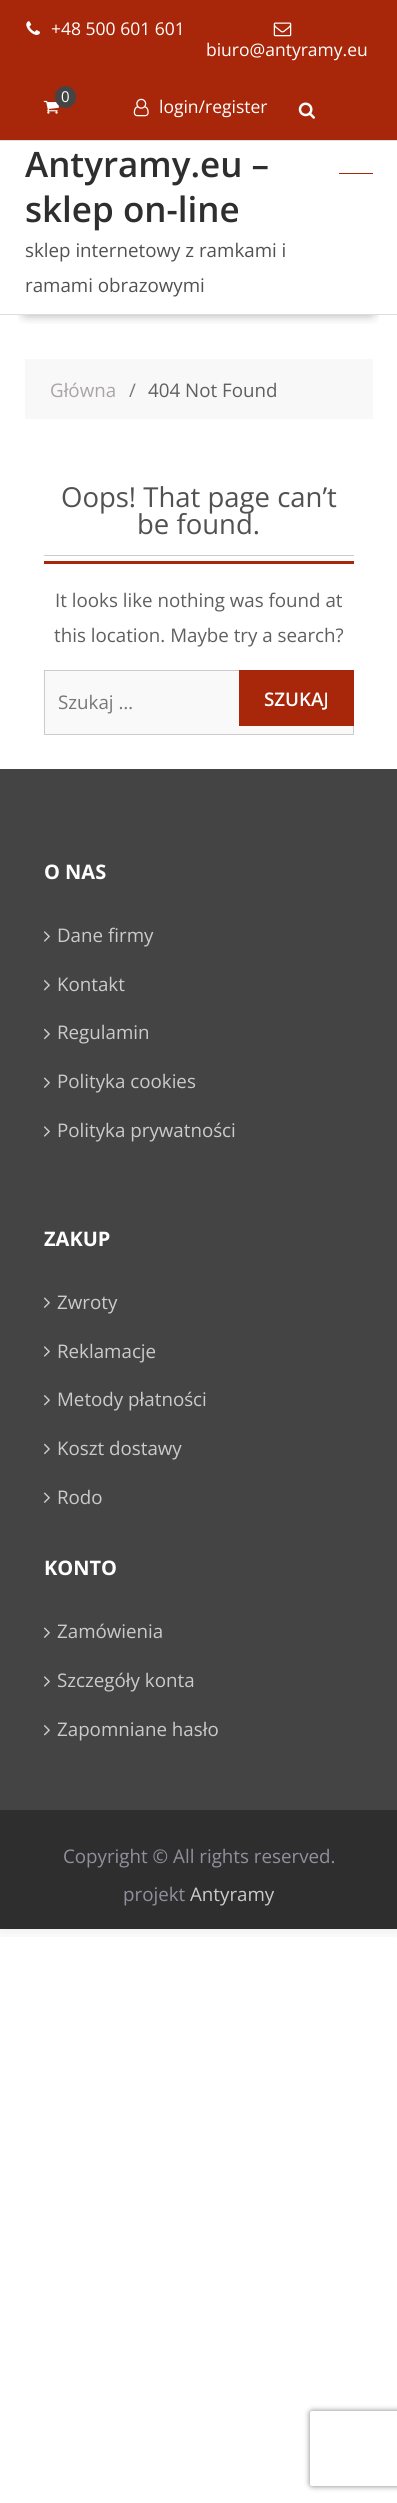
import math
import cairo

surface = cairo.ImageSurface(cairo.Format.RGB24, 397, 2503)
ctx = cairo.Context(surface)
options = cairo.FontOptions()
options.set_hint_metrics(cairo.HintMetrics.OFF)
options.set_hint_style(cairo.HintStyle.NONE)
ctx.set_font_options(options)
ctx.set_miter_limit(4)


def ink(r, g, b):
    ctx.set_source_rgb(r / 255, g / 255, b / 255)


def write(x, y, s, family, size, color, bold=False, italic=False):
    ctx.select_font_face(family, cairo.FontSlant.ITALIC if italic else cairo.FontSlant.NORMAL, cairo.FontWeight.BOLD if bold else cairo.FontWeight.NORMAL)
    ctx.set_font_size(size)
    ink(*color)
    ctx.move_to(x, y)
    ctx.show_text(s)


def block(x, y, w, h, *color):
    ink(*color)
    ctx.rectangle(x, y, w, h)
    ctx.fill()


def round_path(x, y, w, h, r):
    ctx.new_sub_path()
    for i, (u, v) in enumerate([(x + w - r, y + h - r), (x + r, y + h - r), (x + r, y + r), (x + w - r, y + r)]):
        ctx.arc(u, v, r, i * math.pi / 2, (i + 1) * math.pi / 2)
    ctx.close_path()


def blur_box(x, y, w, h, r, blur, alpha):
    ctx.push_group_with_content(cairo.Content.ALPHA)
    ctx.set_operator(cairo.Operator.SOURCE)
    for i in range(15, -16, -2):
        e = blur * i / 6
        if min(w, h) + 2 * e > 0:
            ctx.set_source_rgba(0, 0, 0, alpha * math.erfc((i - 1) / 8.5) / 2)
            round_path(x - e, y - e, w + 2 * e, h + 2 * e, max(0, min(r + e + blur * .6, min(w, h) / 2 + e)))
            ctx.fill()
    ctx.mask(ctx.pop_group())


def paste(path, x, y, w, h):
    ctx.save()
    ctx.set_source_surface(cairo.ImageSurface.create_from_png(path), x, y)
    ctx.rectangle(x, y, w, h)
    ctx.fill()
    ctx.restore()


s1 = dict(family="Open Sans", size=17.5, color=(255, 255, 255))
s2 = dict(family="Open Sans", size=15, color=(255, 255, 255))
s3 = dict(family="Open Sans SemiBold", size=35, color=(46, 46, 46))
s4 = dict(family="Open Sans", size=18.75, color=(81, 81, 81))
s5 = dict(family="Open Sans", size=18.75, color=(170, 165, 165))
s6 = dict(family="Open Sans", size=18.75, color=(119, 119, 119))
s7 = dict(family="Open Sans", size=18.75, color=(95, 95, 95))
s8 = dict(family="Open Sans", size=27.5, color=(81, 81, 81))
s9 = dict(family="Open Sans SemiBold", size=18.75, color=(255, 255, 255))
s10 = dict(family="Open Sans", size=20, color=(255, 255, 255), bold=True)
s11 = dict(family="Open Sans", size=18.75, color=(204, 202, 202))
s12 = dict(family="Open Sans", size=18.75, color=(145, 143, 157))

ink(255, 255, 255)
ctx.paint()
ctx.save()
ctx.rectangle(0, 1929, 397, 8)
ctx.clip()
ink(0, 0, 0)
blur_box(0, 0, 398, 1929, 0, 9.5, 0.1)
ctx.restore()
block(0, 0, 397, 140, 168, 39, 10)
paste("pic1.png", 26, 21, 14, 14)
write(51, 35, "+48 500 601 601", **s1)
paste("pic2.png", 273, 22, 19, 15)
write(206, 56, "biuro@antyramy.eu", **s1)
paste("pic3.png", 43, 100, 16, 14)
ink(68, 68, 68)
round_path(55, 86, 21, 22, 10.5)
ctx.fill()
write(61, 102, "0", **s2)
paste("pic4.png", 133, 98, 16, 19)
write(159, 113, "login/register", **s1)
paste("pic5.png", 298, 102, 17, 17)
ctx.save()
ctx.rectangle(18, 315, 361, 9)
ctx.clip()
ink(0, 0, 0)
blur_box(26, 188, 345, 122, 0, 7, 0.75)
ctx.restore()
block(0, 140, 397, 1, 222, 222, 222)
block(0, 314, 397, 1, 222, 222, 222)
write(25, 177, "Antyramy.eu –", **s3)
write(25, 222, "sklep on-line", **s3)
write(25, 257, "sklep internetowy z ramkami i", **s4)
write(25, 292, "ramami obrazowymi", **s4)
block(339, 173, 34, 1, 168, 39, 10)
block(25, 359, 348, 60, 248, 248, 248)
write(50, 397, "Główna", **s5)
write(129, 397, "/", **s6)
write(148, 397, "404 Not Found", **s7)
block(44, 555, 310, 1, 204, 204, 204)
write(61, 507, "Oops! That page can’t", **s8)
write(137, 534, "be found.", **s8)
block(44, 561, 310, 3, 168, 39, 10)
write(55, 607, "It looks like nothing was found at", **s7)
write(54, 642, "this location. Maybe try a search?", **s7)
ink(249, 249, 249)
ctx.rectangle(44.5, 670.5, 309, 64)
ctx.fill_preserve()
ink(204, 204, 204)
ctx.set_line_width(1)
ctx.stroke()
write(58, 709, "Szukaj …", **s6)
block(239, 670, 115, 56, 168, 39, 10)
write(264, 706, "SZUKAJ", **s9)
block(0, 769, 397, 1041, 68, 68, 68)
write(44, 879, "O NAS", **s10)
paste("pic6.png", 44, 931, 6, 11)
write(57, 942, "Dane firmy", **s11)
paste("pic7.png", 44, 980, 6, 11)
write(57, 991, "Kontakt", **s11)
paste("pic8.png", 44, 1028, 6, 12)
write(57, 1039, "Regulamin", **s11)
paste("pic9.png", 43, 1077, 7, 11)
write(57, 1088, "Polityka cookies", **s11)
paste("pic6.png", 44, 1126, 6, 11)
write(57, 1137, "Polityka prywatności", **s11)
write(44, 1246, "ZAKUP", **s10)
paste("pic9.png", 43, 1297, 7, 11)
write(57, 1309, "Zwroty", **s11)
paste("pic6.png", 44, 1346, 6, 11)
write(57, 1358, "Reklamacje", **s11)
paste("pic7.png", 44, 1395, 6, 11)
write(57, 1406, "Metody płatności", **s11)
paste("pic8.png", 44, 1443, 6, 12)
write(57, 1455, "Koszt dostawy", **s11)
paste("pic9.png", 43, 1492, 7, 11)
write(57, 1504, "Rodo", **s11)
write(44, 1575, "KONTO", **s10)
paste("pic9.png", 43, 1627, 7, 11)
write(57, 1638, "Zamówienia", **s11)
paste("pic6.png", 44, 1676, 6, 11)
write(57, 1687, "Szczegóły konta", **s11)
paste("pic7.png", 44, 1725, 6, 11)
write(57, 1736, "Zapomniane hasło", **s11)
block(0, 1810, 397, 119, 46, 46, 46)
write(63, 1863, "Copyright © All rights reserved.", **s12)
write(123, 1901, "projekt", **s12)
write(190, 1901, "Antyramy", **s11)
ctx.save()
ctx.set_fill_rule(cairo.FillRule.EVEN_ODD)
ctx.new_path()
ctx.move_to(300, 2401)
ctx.line_to(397, 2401)
ctx.line_to(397, 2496)
ctx.line_to(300, 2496)
ctx.close_path()
ctx.move_to(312.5, 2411)
ctx.line_to(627.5, 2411)
ctx.curve_to(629, 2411, 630, 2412, 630, 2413.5)
ctx.line_to(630, 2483.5)
ctx.curve_to(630, 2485, 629, 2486, 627.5, 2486)
ctx.line_to(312.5, 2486)
ctx.curve_to(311, 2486, 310, 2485, 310, 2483.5)
ctx.line_to(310, 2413.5)
ctx.curve_to(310, 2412, 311, 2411, 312.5, 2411)
ctx.close_path()
ctx.clip()
ink(128, 128, 128)
blur_box(310, 2411, 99, 75, 2.5, 3, 1)
ctx.restore()
surface.write_to_png("screenshot.png")
